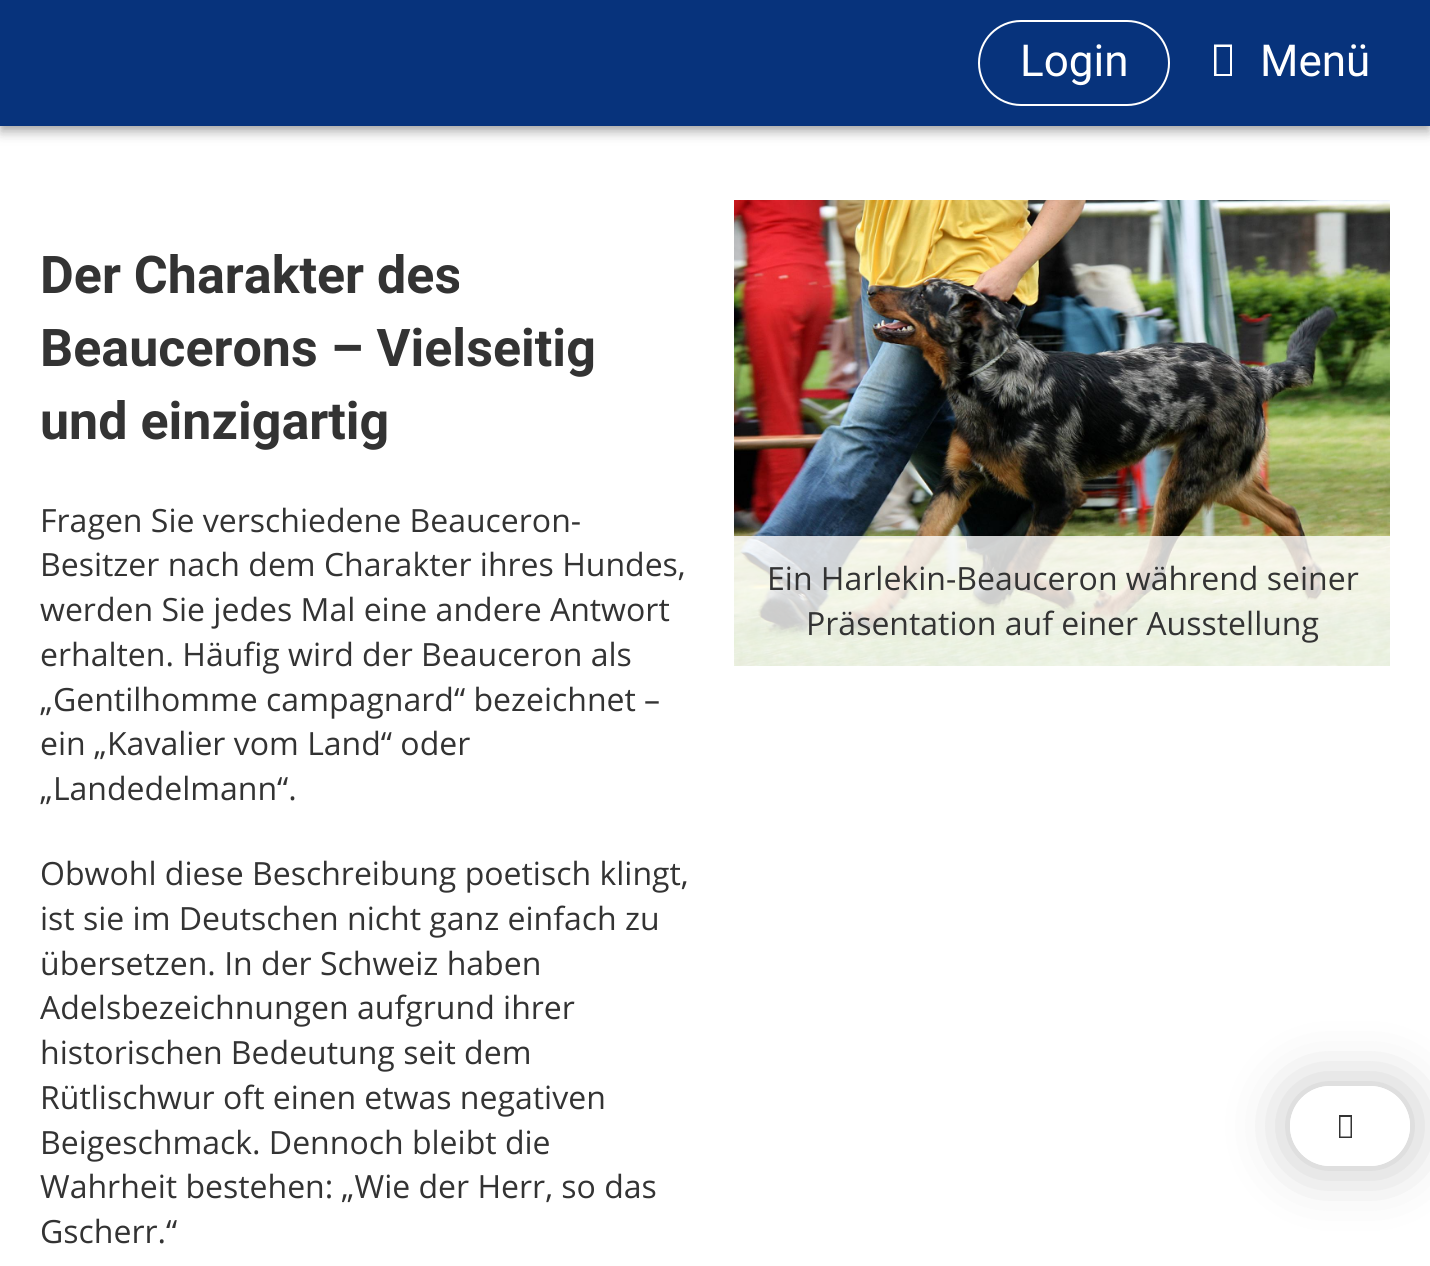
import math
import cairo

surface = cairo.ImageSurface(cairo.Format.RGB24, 1430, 1266)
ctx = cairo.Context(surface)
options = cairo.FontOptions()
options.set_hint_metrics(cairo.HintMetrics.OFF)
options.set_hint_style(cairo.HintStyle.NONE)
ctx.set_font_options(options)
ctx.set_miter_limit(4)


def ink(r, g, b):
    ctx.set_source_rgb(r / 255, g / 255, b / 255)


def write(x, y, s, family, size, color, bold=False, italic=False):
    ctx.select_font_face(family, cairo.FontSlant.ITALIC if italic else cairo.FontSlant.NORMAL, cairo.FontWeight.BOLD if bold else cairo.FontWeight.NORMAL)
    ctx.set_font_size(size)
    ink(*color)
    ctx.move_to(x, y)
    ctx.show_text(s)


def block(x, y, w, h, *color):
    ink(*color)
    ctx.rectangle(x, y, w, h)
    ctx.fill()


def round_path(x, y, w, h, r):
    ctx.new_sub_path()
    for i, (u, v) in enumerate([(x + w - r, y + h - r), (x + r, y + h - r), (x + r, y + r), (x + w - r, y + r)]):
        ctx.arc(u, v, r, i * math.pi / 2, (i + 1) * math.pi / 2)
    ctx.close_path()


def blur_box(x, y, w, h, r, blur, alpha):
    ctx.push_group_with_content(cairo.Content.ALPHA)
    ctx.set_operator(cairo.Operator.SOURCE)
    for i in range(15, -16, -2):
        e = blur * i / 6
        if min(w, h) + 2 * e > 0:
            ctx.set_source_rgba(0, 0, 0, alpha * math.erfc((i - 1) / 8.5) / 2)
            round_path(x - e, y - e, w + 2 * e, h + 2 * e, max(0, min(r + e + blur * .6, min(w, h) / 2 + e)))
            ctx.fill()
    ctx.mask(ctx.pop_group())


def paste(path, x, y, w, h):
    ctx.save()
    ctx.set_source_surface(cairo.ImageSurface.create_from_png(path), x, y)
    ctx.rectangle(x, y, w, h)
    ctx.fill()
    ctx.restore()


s1 = dict(family="Roboto", size=44, color=(255, 255, 255))
s2 = dict(family="Roboto", size=52, color=(51, 51, 51), bold=True)
s3 = dict(family="Open Sans", size=32, color=(51, 51, 51))

ink(255, 255, 255)
ctx.paint()
ink(0, 0, 0)
blur_box(0, 2, 1430, 126, 0, 10, 0.12)
blur_box(0, 8, 1430, 126, 0, 5, 0.14)
blur_box(2, 6, 1426, 122, 0, 4, 0.2)
block(0, 0, 1430, 126, 7, 51, 124)
round_path(979, 21, 190, 84, 42)
ink(255, 255, 255)
ctx.stroke()
write(1020, 76, "Login", **s1)
ctx.new_path()
ctx.move_to(1214, 76)
ctx.line_to(1214, 44.5)
ctx.line_to(1232, 44.5)
ctx.line_to(1232, 76)
ctx.close_path()
ctx.move_to(1216.5, 74)
ctx.line_to(1230, 74)
ctx.line_to(1230, 47)
ctx.line_to(1216.5, 47)
ctx.close_path()
ctx.fill()
write(1260, 76, "Menü", **s1)
write(40, 293, "Der Charakter des", **s2)
write(40, 366, "Beaucerons – Vielseitig", **s2)
write(40, 439, "und einzigartig", **s2)
write(40, 532, "Fragen Sie verschiedene Beauceron-", **s3)
write(40, 576, "Besitzer nach dem Charakter ihres Hundes,", **s3)
write(40, 621, "werden Sie jedes Mal eine andere Antwort", **s3)
write(40, 666, "erhalten. Häufig wird der Beauceron als", **s3)
write(40, 711, "„Gentilhomme campagnard“ bezeichnet –", **s3)
write(40, 755, "ein „Kavalier vom Land“ oder", **s3)
write(40, 800, "„Landedelmann“.", **s3)
write(40, 885, "Obwohl diese Beschreibung poetisch klingt,", **s3)
write(40, 930, "ist sie im Deutschen nicht ganz einfach zu", **s3)
write(40, 975, "übersetzen. In der Schweiz haben", **s3)
write(40, 1019, "Adelsbezeichnungen aufgrund ihrer", **s3)
write(40, 1064, "historischen Bedeutung seit dem", **s3)
write(40, 1109, "Rütlischwur oft einen etwas negativen", **s3)
write(40, 1154, "Beigeschmack. Dennoch bleibt die", **s3)
write(40, 1198, "Wahrheit bestehen: „Wie der Herr, so das", **s3)
write(40, 1243, "Gscherr.“", **s3)
paste("pic1.png", 734, 200, 656, 466)
ctx.set_source_rgba(1, 1, 1, 0.8)
ctx.rectangle(734, 536, 656, 130)
ctx.fill()
write(767, 590, "Ein Harlekin-Beauceron während seiner", **s3)
write(806, 635, "Präsentation auf einer Ausstellung", **s3)
ctx.save()
ctx.set_fill_rule(cairo.FillRule.EVEN_ODD)
ctx.new_path()
ctx.move_to(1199, 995)
ctx.line_to(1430, 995)
ctx.line_to(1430, 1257)
ctx.line_to(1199, 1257)
ctx.close_path()
ctx.move_to(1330, 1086)
ctx.line_to(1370, 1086)
ctx.curve_to(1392, 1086, 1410, 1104, 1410, 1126)
ctx.curve_to(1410, 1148, 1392, 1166, 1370, 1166)
ctx.line_to(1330, 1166)
ctx.curve_to(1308, 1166, 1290, 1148, 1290, 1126)
ctx.curve_to(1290, 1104, 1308, 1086, 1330, 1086)
ctx.close_path()
ctx.clip()
ink(0, 0, 0)
blur_box(1290, 1086, 120, 80, 40, 30, 0.25)
ctx.restore()
ctx.set_source_rgba(1, 1, 1, 0.8)
round_path(1290, 1086, 120, 80, 40)
ctx.fill()
ink(51, 51, 51)
ctx.new_path()
ctx.move_to(1339, 1138)
ctx.line_to(1339, 1115)
ctx.line_to(1352, 1115)
ctx.line_to(1352, 1138)
ctx.close_path()
ctx.move_to(1340.5, 1136.5)
ctx.line_to(1350.5, 1136.5)
ctx.line_to(1350.5, 1117)
ctx.line_to(1340.5, 1117)
ctx.close_path()
ctx.fill()
surface.write_to_png("screenshot.png")
